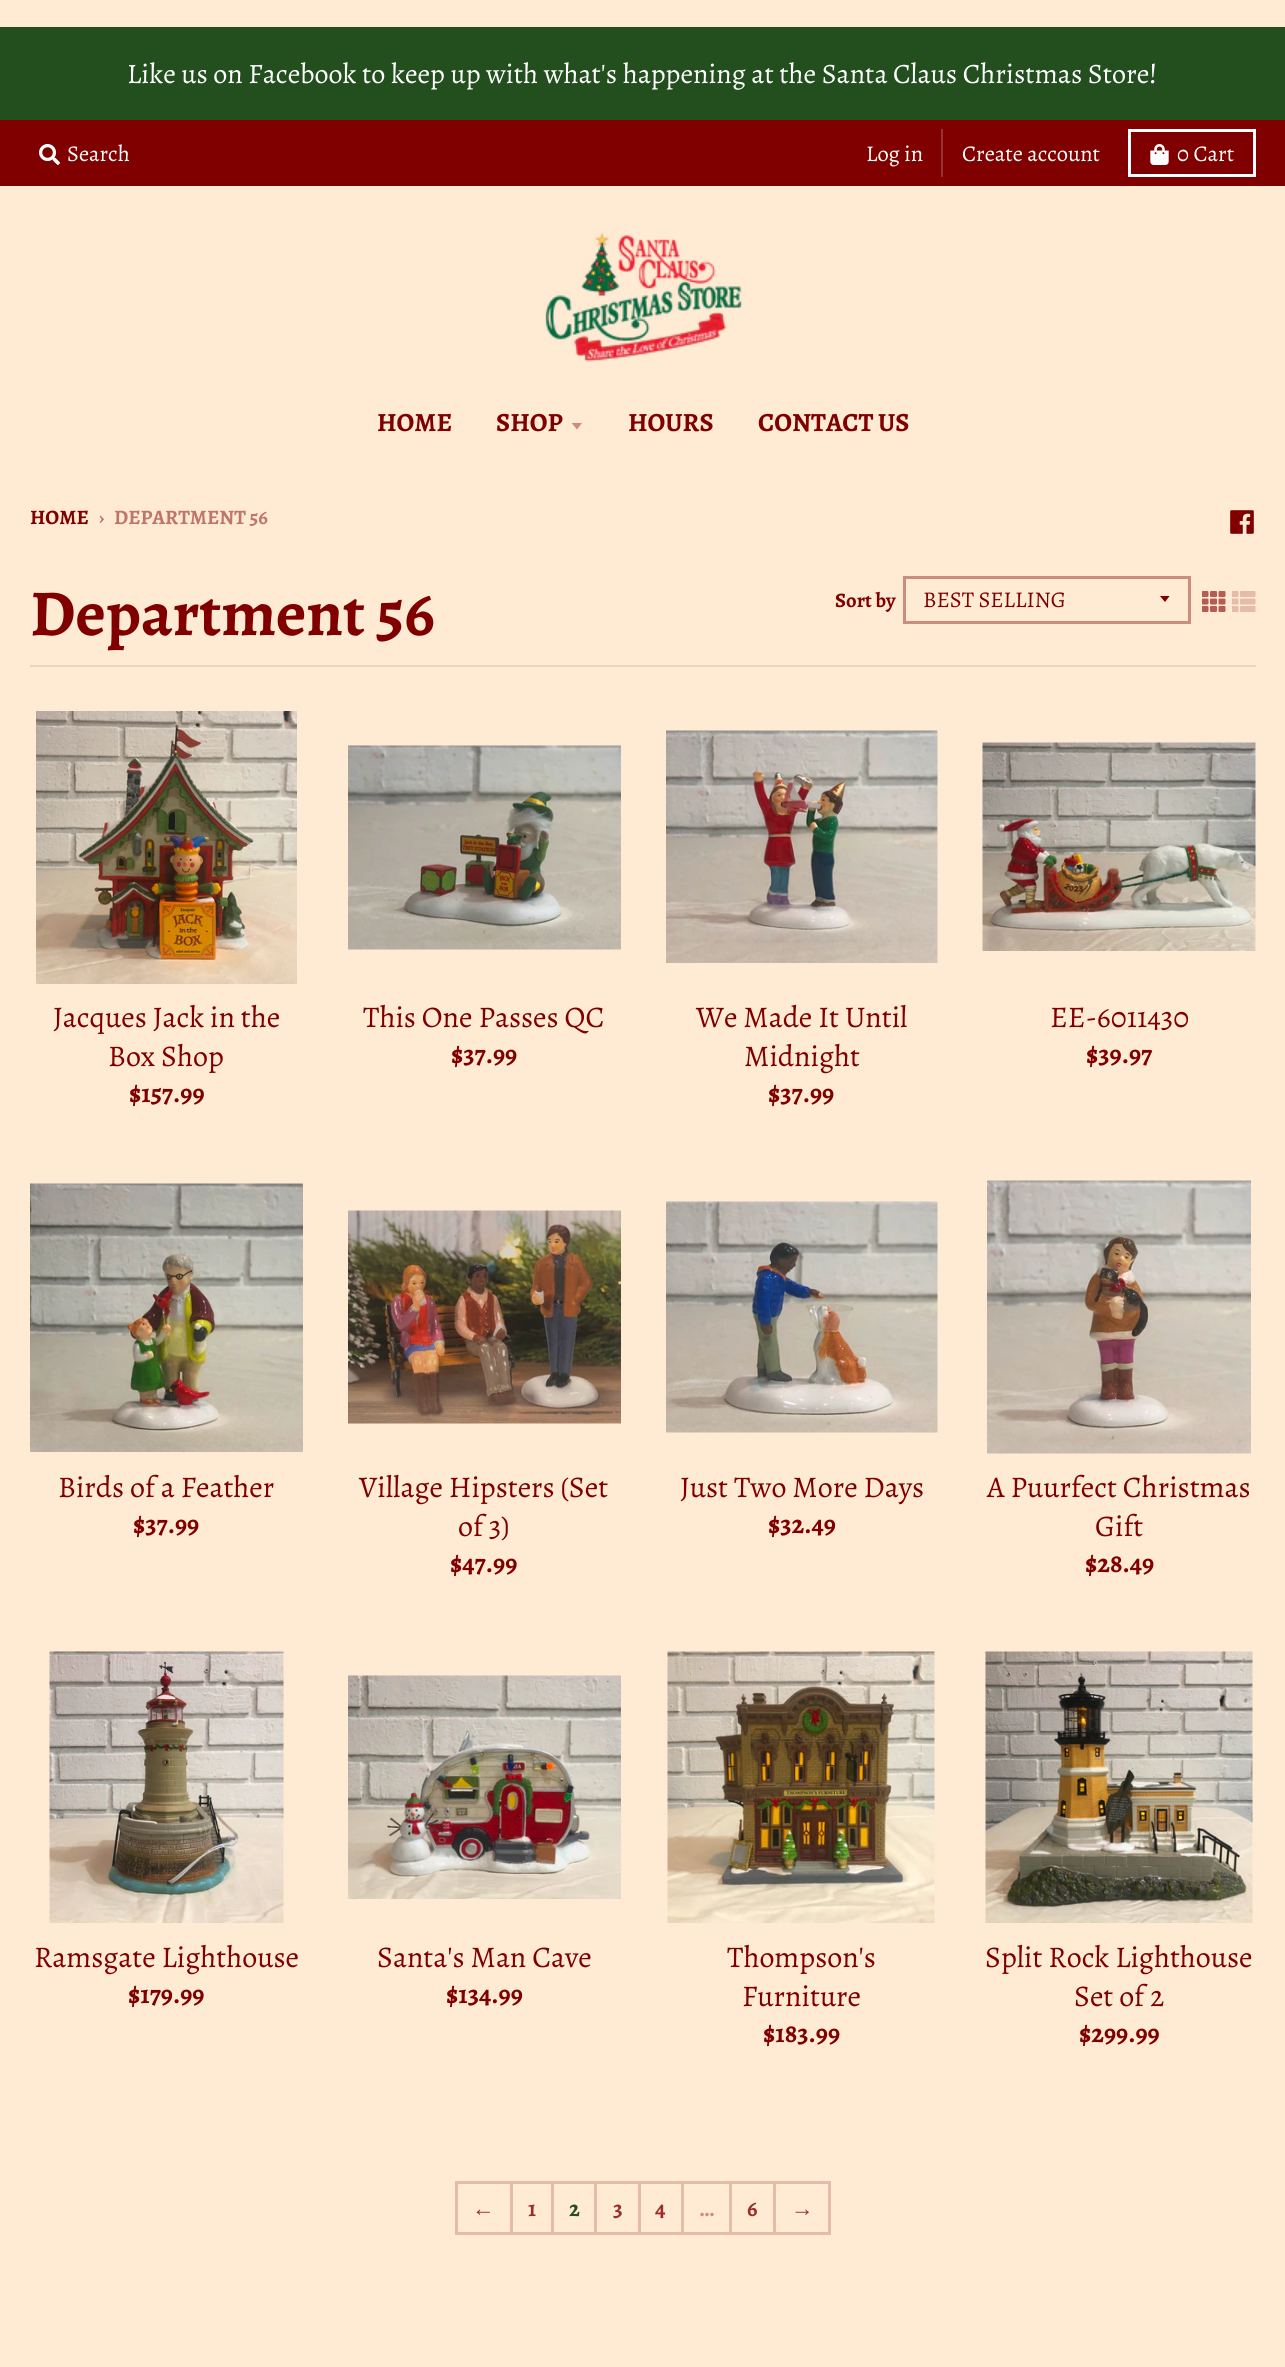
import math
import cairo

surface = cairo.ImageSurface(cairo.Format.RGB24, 1285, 2367)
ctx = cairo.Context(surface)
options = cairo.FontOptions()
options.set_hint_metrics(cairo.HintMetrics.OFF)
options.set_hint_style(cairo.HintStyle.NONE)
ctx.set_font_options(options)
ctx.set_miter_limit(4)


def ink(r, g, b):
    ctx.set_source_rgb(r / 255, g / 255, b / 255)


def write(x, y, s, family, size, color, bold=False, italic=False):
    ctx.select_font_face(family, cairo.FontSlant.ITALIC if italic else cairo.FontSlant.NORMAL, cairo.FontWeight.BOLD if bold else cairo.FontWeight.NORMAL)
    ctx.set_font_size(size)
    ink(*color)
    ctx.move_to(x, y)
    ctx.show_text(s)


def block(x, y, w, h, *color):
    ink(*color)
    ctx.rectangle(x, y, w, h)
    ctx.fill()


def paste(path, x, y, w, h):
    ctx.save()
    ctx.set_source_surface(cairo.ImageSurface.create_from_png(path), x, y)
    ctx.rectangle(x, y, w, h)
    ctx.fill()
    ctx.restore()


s1 = dict(family="Alegreya", size=28.1, color=(255, 255, 255))
s2 = dict(family="Alegreya", size=22.5, color=(255, 255, 255))
s3 = dict(family="Alegreya", size=26.25, color=(128, 0, 0), bold=True)
s4 = dict(family="Alegreya", size=20.5, color=(128, 0, 0), bold=True)
s5 = dict(family="Alegreya", size=20.5, color=(191, 117, 106), bold=True)
s6 = dict(family="Alegreya", size=65.5, color=(128, 0, 0), bold=True)
s7 = dict(family="Alegreya", size=22.5, color=(128, 0, 0))
s8 = dict(family="Alegreya", size=30, color=(128, 0, 0))
s9 = dict(family="Liberation Serif", size=22.5, color=(153, 46, 42), bold=True)
s10 = dict(family="Alegreya", size=22.5, color=(153, 46, 42), bold=True)
s11 = dict(family="Alegreya", size=22.5, color=(35, 79, 30), bold=True)
s12 = dict(family="Alegreya", size=22.5, color=(204, 141, 127), bold=True)

ink(255, 235, 212)
ctx.paint()
block(0, 27, 1285, 93, 35, 79, 30)
write(127, 83, "Like us on Facebook to keep up with what's happening at the Santa Claus Christmas Store!", **s1)
block(0, 120, 1285, 66, 128, 0, 0)
paste("pic1.png", 39, 144, 21, 21)
write(67, 161, "Search", **s2)
block(941, 129, 2, 48, 153, 51, 51)
write(866, 161, "Log in", **s2)
write(962, 161, "Create account", **s2)
ctx.rectangle(1129.5, 130.5, 125, 45)
ctx.set_line_width(3)
ctx.stroke()
paste("pic2.png", 1150, 144, 19, 21)
write(1177, 161, "0 Cart", **s2)
paste("pic3.png", 545, 229, 197, 133)
write(377, 431, "HOME", **s3)
write(496, 431, "SHOP", **s3)
ink(204, 141, 127)
ctx.new_path()
ctx.move_to(571.5, 423)
ctx.line_to(577, 429.5)
ctx.line_to(582, 423)
ctx.close_path()
ctx.fill()
write(628, 431, "HOURS", **s3)
write(758, 431, "CONTACT US", **s3)
write(30, 524, "HOME", **s4)
write(99, 524, "›", **s5)
write(114, 524, "DEPARTMENT 56", **s5)
paste("pic4.png", 1230, 510, 24, 24)
block(30, 665, 1226, 2, 242, 211, 190)
write(30, 635, "Department 56", **s6)
write(835, 607, "Sort by", **s4)
ctx.save()
ctx.rectangle(1160, 596, 12, 7)
ctx.clip()
ctx.new_path()
ctx.move_to(1159.5, 595.5)
ctx.line_to(1165, 602)
ctx.line_to(1170, 595.5)
ctx.close_path()
ctx.fill()
ctx.restore()
ctx.rectangle(904.5, 577.5, 285, 45)
ink(204, 141, 127)
ctx.stroke()
write(923, 607, "BEST SELLING", **s7)
paste("pic5.png", 1202, 591, 24, 21)
paste("pic6.png", 1232, 591, 24, 21)
paste("pic7.png", 36, 711, 261, 273)
write(53, 1027, "Jacques Jack in the", **s8)
write(108, 1066, "Box Shop", **s8)
write(129, 1102, "$157.99", **s3)
paste("pic8.png", 348, 745, 273, 205)
write(363, 1027, "This One Passes QC", **s8)
write(451, 1063, "$37.99", **s3)
paste("pic9.png", 666, 730, 272, 233)
write(696, 1027, "We Made It Until", **s8)
write(744, 1066, "Midnight", **s8)
write(768, 1102, "$37.99", **s3)
paste("pic10.png", 982, 742, 274, 209)
write(1050, 1027, "EE-6011430", **s8)
write(1086, 1063, "$39.97", **s3)
paste("pic11.png", 30, 1183, 273, 269)
write(58, 1497, "Birds of a Feather", **s8)
write(133, 1533, "$37.99", **s3)
paste("pic12.png", 348, 1210, 273, 214)
write(359, 1497, "Village Hipsters (Set", **s8)
write(458, 1536, "of 3)", **s8)
write(450, 1572, "$47.99", **s3)
paste("pic13.png", 666, 1201, 272, 232)
write(680, 1497, "Just Two More Days", **s8)
write(768, 1533, "$32.49", **s3)
paste("pic14.png", 987, 1180, 264, 274)
write(987, 1497, "A Puurfect Christmas", **s8)
write(1095, 1536, "Gift", **s8)
write(1085, 1572, "$28.49", **s3)
paste("pic15.png", 49, 1651, 235, 272)
write(34, 1967, "Ramsgate Lighthouse", **s8)
write(128, 2003, "$179.99", **s3)
paste("pic16.png", 348, 1675, 273, 224)
write(377, 1967, "Santa's Man Cave", **s8)
write(446, 2003, "$134.99", **s3)
paste("pic17.png", 667, 1651, 268, 272)
write(727, 1967, "Thompson's", **s8)
write(742, 2006, "Furniture", **s8)
write(763, 2042, "$183.99", **s3)
paste("pic18.png", 985, 1651, 268, 272)
write(985, 1967, "Split Rock Lighthouse", **s8)
write(1074, 2006, "Set of 2", **s8)
write(1079, 2042, "$299.99", **s3)
ctx.rectangle(456.5, 2182.5, 55, 51)
ink(229, 188, 169)
ctx.stroke()
write(472, 2216, "←", **s9)
block(513, 2181, 318, 3, 229, 188, 169)
block(551, 2181, 3, 54, 229, 188, 169)
block(513, 2232, 41, 3, 229, 188, 169)
write(528, 2216, "1", **s10)
block(594, 2181, 3, 54, 229, 188, 169)
block(554, 2232, 43, 3, 229, 188, 169)
write(569, 2216, "2", **s11)
block(638, 2181, 3, 54, 229, 188, 169)
block(597, 2232, 44, 3, 229, 188, 169)
write(613, 2216, "3", **s10)
block(681, 2181, 3, 54, 229, 188, 169)
block(641, 2232, 43, 3, 229, 188, 169)
write(655, 2216, "4", **s10)
block(729, 2181, 3, 54, 229, 188, 169)
block(684, 2232, 48, 3, 229, 188, 169)
write(699, 2216, "…", **s12)
block(773, 2181, 3, 54, 229, 188, 169)
block(732, 2232, 44, 3, 229, 188, 169)
write(747, 2216, "6", **s10)
block(828, 2181, 3, 54, 229, 188, 169)
block(776, 2232, 55, 3, 229, 188, 169)
write(791, 2216, "→", **s9)
surface.write_to_png("screenshot.png")
